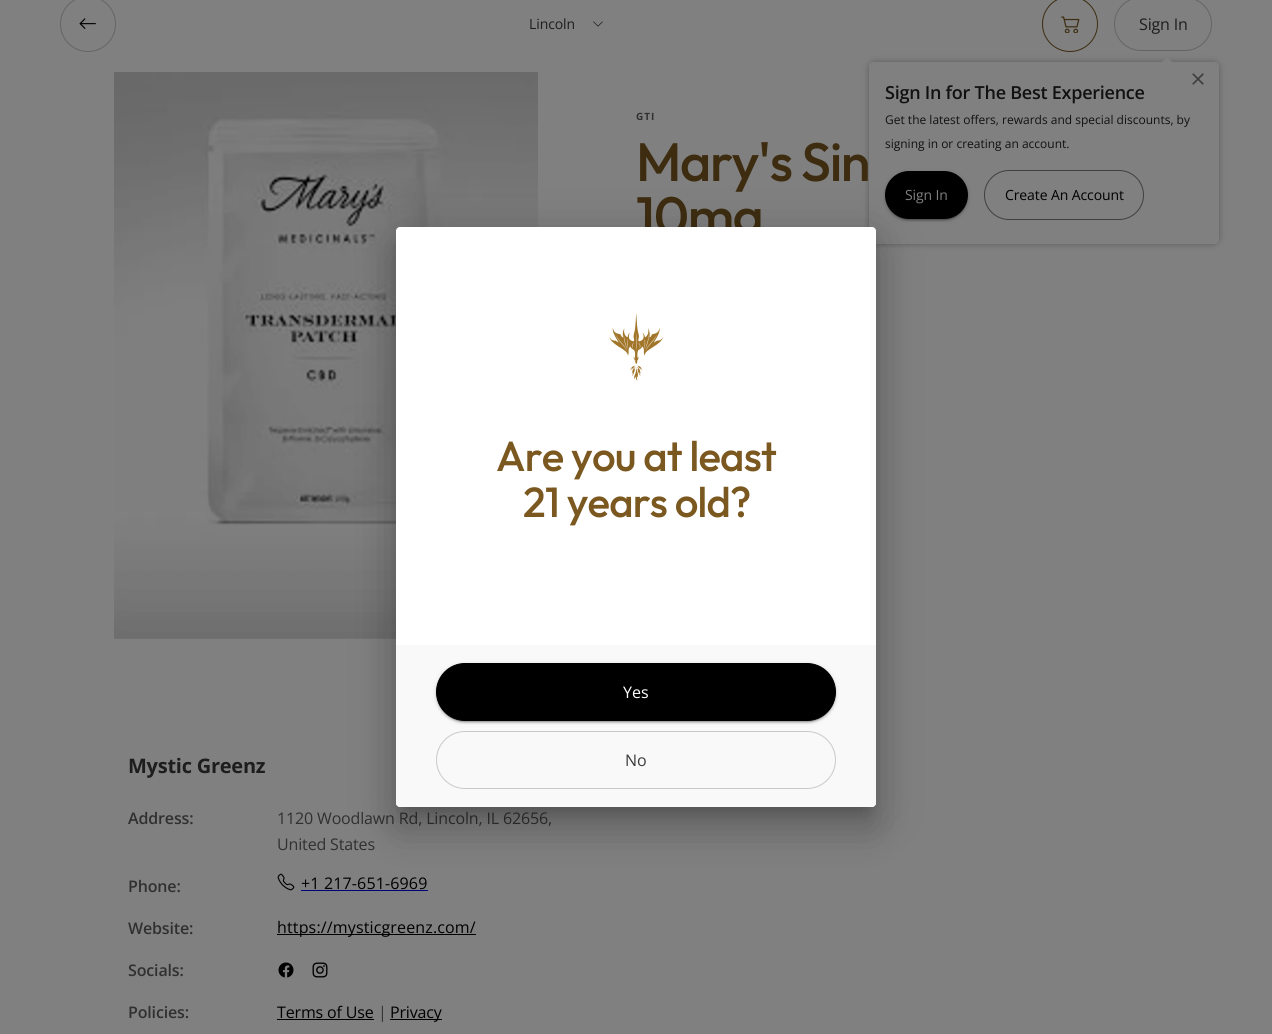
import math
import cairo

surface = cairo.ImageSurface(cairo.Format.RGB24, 1272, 1034)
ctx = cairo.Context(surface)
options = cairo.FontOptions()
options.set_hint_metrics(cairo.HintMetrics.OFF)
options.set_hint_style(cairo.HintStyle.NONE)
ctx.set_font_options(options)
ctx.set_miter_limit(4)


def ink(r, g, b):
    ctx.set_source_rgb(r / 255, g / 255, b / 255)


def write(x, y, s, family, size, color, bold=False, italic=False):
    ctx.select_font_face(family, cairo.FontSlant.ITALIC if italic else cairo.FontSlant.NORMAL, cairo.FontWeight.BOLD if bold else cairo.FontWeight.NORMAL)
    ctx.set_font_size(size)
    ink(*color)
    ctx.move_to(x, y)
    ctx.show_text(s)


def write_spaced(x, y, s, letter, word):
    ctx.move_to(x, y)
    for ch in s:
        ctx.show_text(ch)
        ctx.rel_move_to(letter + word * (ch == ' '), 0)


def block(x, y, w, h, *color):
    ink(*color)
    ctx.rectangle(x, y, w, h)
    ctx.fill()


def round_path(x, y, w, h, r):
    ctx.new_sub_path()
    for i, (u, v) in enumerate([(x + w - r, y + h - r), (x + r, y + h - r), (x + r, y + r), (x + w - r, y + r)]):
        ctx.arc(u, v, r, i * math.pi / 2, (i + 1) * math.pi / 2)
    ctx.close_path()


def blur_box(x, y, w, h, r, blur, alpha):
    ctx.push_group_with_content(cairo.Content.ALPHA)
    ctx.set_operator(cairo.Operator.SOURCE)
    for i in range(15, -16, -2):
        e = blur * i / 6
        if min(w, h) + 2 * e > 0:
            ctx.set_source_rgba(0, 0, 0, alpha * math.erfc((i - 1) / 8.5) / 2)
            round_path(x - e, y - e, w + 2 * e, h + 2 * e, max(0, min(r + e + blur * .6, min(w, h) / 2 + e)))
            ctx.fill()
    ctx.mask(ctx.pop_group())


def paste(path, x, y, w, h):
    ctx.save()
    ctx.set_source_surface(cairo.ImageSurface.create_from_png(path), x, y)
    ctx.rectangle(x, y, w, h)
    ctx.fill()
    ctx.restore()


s1 = dict(family="Open Sans", size=12, color=(17, 17, 17))
s2 = dict(family="Open Sans", size=16, color=(255, 255, 255))
s3 = dict(family="Open Sans", size=16, color=(58, 58, 58))

ink(128, 128, 128)
ctx.paint()
ctx.arc(88, 24, 27.5, 0, 2 * math.pi)
ink(101, 101, 101)
ctx.set_line_width(1)
ctx.stroke()
paste("pic1.png", 79, 18, 17, 11)
ctx.select_font_face("Open Sans")
ctx.set_font_size(14)
ink(29, 29, 29)
write_spaced(529, 29, "Lincoln", -0.1, 0)
paste("pic2.png", 593, 21, 10, 6)
ctx.arc(1070, 24, 27.5, 0, 2 * math.pi)
ink(61, 44, 16)
ctx.stroke()
paste("pic3.png", 1061, 16, 19, 17)
round_path(1114.5, -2.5, 97, 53, 26.5)
ink(101, 101, 101)
ctx.stroke()
ctx.set_font_size(16)
ink(29, 29, 29)
write_spaced(1139, 30, "Sign In", -0.15, 0)
ink(89, 89, 89)
blur_box(869, 62, 350, 182, 6, 3, 1)
ink(128, 128, 128)
ctx.new_path()
ctx.move_to(1172, 62)
ctx.line_to(1162, 62)
ctx.line_to(1167, 57)
ctx.close_path()
ctx.fill()
round_path(869, 62, 350, 182, 4)
ctx.fill()
paste("pic4.png", 1192, 73, 12, 12)
ctx.select_font_face("Open Sans SemiBold")
ctx.set_font_size(18)
ink(17, 17, 17)
write_spaced(885, 99, "Sign In for The Best Experience", -0.25, 0)
write(885, 124, "Get the latest offers, rewards and special discounts, by", **s1)
write(885, 148, "signing in or creating an account.", **s1)
ink(0, 0, 0)
blur_box(885, 172, 83, 48, 24, 2.5, 0.12)
blur_box(885, 173, 83, 48, 24, 1, 0.14)
blur_box(887, 176, 79, 44, 22, 0.5, 0.2)
ink(0, 0, 0)
round_path(885, 171, 83, 48, 24)
ctx.fill()
ctx.set_font_size(14)
ink(128, 128, 128)
write_spaced(905, 200, "Sign In", -0.1, 0)
round_path(984.5, 170.5, 159, 49, 24.5)
ink(64, 64, 64)
ctx.stroke()
ink(0, 0, 0)
write_spaced(1005, 200, "Create An Account", -0.1, 0)
paste("pic5.png", 114, 72, 424, 567)
ctx.select_font_face("Open Sans", cairo.FontSlant.NORMAL, cairo.FontWeight.BOLD)
ctx.set_font_size(10)
ink(48, 48, 48)
write_spaced(636, 120, "GTI", 1, 0)
ctx.select_font_face("Outfit Medium")
ctx.set_font_size(54)
ink(61, 44, 16)
write_spaced(636, 181, "Mary's Sin", -1.4, 0)
write_spaced(636, 235, "10mg", -1.4, 0)
ctx.select_font_face("Open Sans", cairo.FontSlant.NORMAL, cairo.FontWeight.BOLD)
ctx.set_font_size(20)
ink(29, 29, 29)
write_spaced(128, 773, "Mystic Greenz", -0.25, 0)
ctx.select_font_face("Open Sans SemiBold")
ctx.set_font_size(16)
ink(48, 48, 48)
write_spaced(128, 824, "Address:", -0.15, 0)
ctx.select_font_face("Open Sans")
write_spaced(277, 824, "1120 Woodlawn Rd, Lincoln, IL 62656,", -0.15, 0)
write_spaced(277, 850, "United States", -0.15, 0)
ctx.select_font_face("Open Sans SemiBold")
write_spaced(128, 892, "Phone:", -0.15, 0)
paste("pic6.png", 277, 873, 18, 18)
ctx.select_font_face("Open Sans")
ink(0, 0, 0)
write_spaced(301, 889, "+1 217-651-6969", 0.15, 0)
block(301, 890, 127, 1, 0, 0, 119)
ctx.select_font_face("Open Sans SemiBold")
ink(48, 48, 48)
write_spaced(128, 934, "Website:", -0.15, 0)
block(277, 934, 199, 1, 0, 0, 0)
ctx.select_font_face("Open Sans")
write_spaced(277, 933, "https://mysticgreenz.com/", 0.15, 0)
ctx.select_font_face("Open Sans SemiBold")
ink(48, 48, 48)
write_spaced(128, 976, "Socials:", -0.15, 0)
paste("pic7.png", 278, 962, 16, 16)
paste("pic8.png", 312, 962, 16, 16)
write_spaced(128, 1018, "Policies:", -0.15, 0)
ctx.select_font_face("Open Sans")
ink(0, 0, 0)
write_spaced(277, 1018, "Terms of Use", -0.15, 0)
block(277, 1019, 97, 1, 0, 0, 0)
ink(48, 48, 48)
write_spaced(378, 1018, "|", -0.15, 0)
block(390, 1019, 52, 1, 0, 0, 0)
write_spaced(390, 1018, "Privacy", -0.15, 0)
ink(0, 0, 0)
blur_box(388, 228, 496, 596, 12, 23, 0.12)
blur_box(393, 248, 486, 586, 7, 19, 0.14)
blur_box(403, 245, 466, 566, 0, 7.5, 0.2)
ink(255, 255, 255)
round_path(396, 227, 480, 580, 4)
ctx.fill()
paste("pic9.png", 609, 313, 55, 68)
ctx.select_font_face("Outfit Medium")
ctx.set_font_size(42)
ink(122, 88, 31)
write_spaced(496, 471, "Are you at least", -0.8, 0)
write_spaced(523, 517, "21 years old?", -0.8, 0)
ink(249, 249, 249)
ctx.new_path()
ctx.move_to(396, 645)
ctx.line_to(876, 645)
ctx.line_to(876, 803)
ctx.curve_to(876, 805, 874, 807, 872, 807)
ctx.line_to(400, 807)
ctx.curve_to(398, 807, 396, 805, 396, 803)
ctx.close_path()
ctx.fill()
ink(0, 0, 0)
blur_box(436, 664, 400, 58, 29, 2.5, 0.12)
blur_box(436, 665, 400, 58, 29, 1, 0.14)
blur_box(438, 668, 396, 54, 27, 0.5, 0.2)
ink(0, 0, 0)
round_path(436.5, 663.5, 399, 57, 28.5)
ctx.fill_preserve()
ctx.stroke()
write(623, 698, "Yes", **s2)
round_path(436.5, 731.5, 399, 57, 28.5)
ink(201, 201, 201)
ctx.stroke()
write(625, 766, "No", **s3)
surface.write_to_png("screenshot.png")
